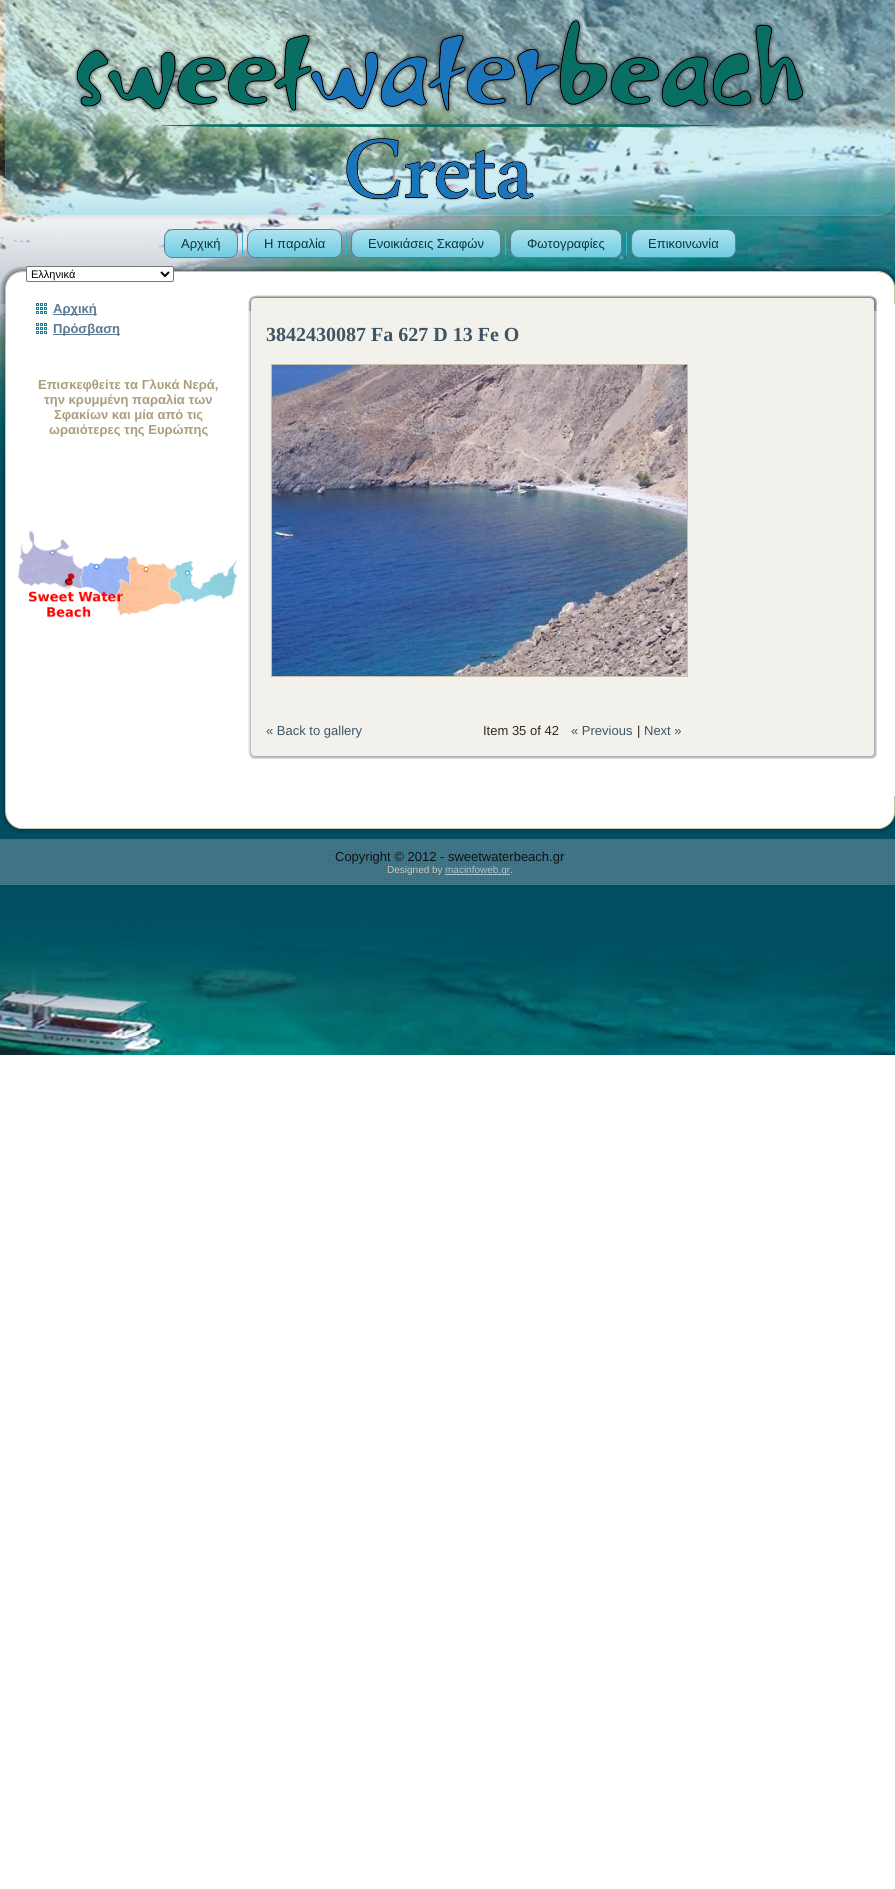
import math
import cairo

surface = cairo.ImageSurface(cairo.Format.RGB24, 895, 1889)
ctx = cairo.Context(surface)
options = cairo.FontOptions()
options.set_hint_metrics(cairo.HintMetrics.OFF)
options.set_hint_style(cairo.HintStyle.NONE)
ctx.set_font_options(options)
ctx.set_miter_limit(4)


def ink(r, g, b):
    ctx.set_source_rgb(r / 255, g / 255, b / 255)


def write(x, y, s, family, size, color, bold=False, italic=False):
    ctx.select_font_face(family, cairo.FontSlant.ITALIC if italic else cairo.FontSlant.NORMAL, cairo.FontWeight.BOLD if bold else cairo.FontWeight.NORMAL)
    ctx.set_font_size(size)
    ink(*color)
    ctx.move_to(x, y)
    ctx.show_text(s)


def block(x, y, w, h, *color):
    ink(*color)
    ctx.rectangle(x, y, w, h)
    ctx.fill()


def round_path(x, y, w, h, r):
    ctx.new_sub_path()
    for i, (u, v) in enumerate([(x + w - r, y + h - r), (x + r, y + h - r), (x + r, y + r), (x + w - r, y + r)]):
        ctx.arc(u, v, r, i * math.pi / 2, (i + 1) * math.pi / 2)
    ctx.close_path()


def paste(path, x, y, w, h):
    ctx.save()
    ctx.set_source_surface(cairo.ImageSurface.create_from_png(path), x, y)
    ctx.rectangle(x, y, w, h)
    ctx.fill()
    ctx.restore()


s1 = dict(family="Liberation Sans", size=13, color=(12, 51, 59))
s2 = dict(family="Liberation Sans", size=11, color=(0, 0, 0))
s3 = dict(family="Liberation Sans", size=13, color=(89, 122, 145), bold=True)
s4 = dict(family="Liberation Sans", size=13, color=(171, 157, 124), bold=True)
s5 = dict(family="Liberation Serif", size=20, color=(62, 85, 101), bold=True)
s6 = dict(family="Liberation Sans", size=13, color=(62, 85, 101))
s7 = dict(family="Liberation Sans", size=13, color=(47, 41, 30))
s8 = dict(family="Liberation Sans", size=13, color=(14, 19, 22))
s9 = dict(family="Liberation Sans", size=10, color=(207, 199, 180))
s10 = dict(family="Liberation Sans", size=10, color=(179, 196, 208))

ink(255, 255, 255)
ctx.paint()
paste("pic1.png", 0, 0, 895, 1055)
paste("pic2.png", 2, 0, 893, 219)
paste("pic3.png", 73, 17, 734, 184)
paste("pic4.png", 164, 229, 65, 29)
paste("pic5.png", 229, 229, 9, 29)
write(181, 248, "Αρχική", **s1)
block(242, 232, 1, 23, 52, 184, 213)
paste("pic6.png", 247, 229, 86, 29)
paste("pic7.png", 333, 229, 9, 29)
write(264, 248, "Η παραλία", **s1)
block(346, 232, 1, 23, 52, 184, 213)
paste("pic8.png", 351, 229, 141, 29)
paste("pic9.png", 492, 229, 9, 29)
write(368, 248, "Ενοικιάσεις Σκαφών", **s1)
block(505, 232, 1, 23, 52, 184, 213)
paste("pic10.png", 510, 229, 103, 29)
paste("pic11.png", 613, 229, 9, 29)
write(527, 248, "Φωτογραφίες", **s1)
block(626, 232, 1, 23, 52, 184, 213)
paste("pic12.png", 631, 229, 96, 29)
paste("pic13.png", 727, 229, 9, 29)
write(648, 248, "Επικοινωνία", **s1)
paste("pic14.png", 0, 266, 862, 567)
paste("pic15.png", 0, 266, 862, 38)
block(862, 304, 33, 492, 255, 255, 255)
paste("pic16.png", 862, 266, 33, 567)
paste("pic17.png", 862, 266, 33, 21)
round_path(26.5, 266.5, 147, 15, 1.5)
ctx.fill_preserve()
ink(118, 118, 118)
ctx.set_line_width(1)
ctx.stroke()
ctx.new_path()
ctx.move_to(161, 272)
ctx.line_to(165, 276)
ctx.line_to(169, 272)
ink(0, 0, 0)
ctx.set_line_width(2)
ctx.stroke()
write(31, 278, "Ελληνικά", **s2)
paste("pic27.png", 0, 304, 862, 492)
paste("pic18.png", 36, 303, 11, 11)
block(53, 314, 44, 1, 89, 122, 145)
write(53, 313, "Αρχική", **s3)
paste("pic18.png", 36, 323, 11, 11)
block(53, 334, 67, 1, 89, 122, 145)
write(53, 333, "Πρόσβαση", **s3)
write(38, 389, "Επισκεφθείτε τα Γλυκά Nερά,", **s4)
write(44, 404, "την κρυμμένη παραλία των", **s4)
write(54, 419, "Σφακίων και μία από τις", **s4)
write(49, 434, "ωραιότερες της Ευρώπης", **s4)
paste("pic19.png", 18, 531, 219, 87)
paste("pic20.png", 248, 295, 613, 464)
paste("pic21.png", 248, 295, 613, 16)
paste("pic25.png", 861, 311, 16, 432)
paste("pic22.png", 861, 295, 16, 464)
paste("pic23.png", 861, 295, 16, 16)
paste("pic24.png", 248, 311, 613, 432)
write(266, 341, "3842430087 Fa 627 D 13 Fe O", **s5)
ctx.rectangle(271.5, 364.5, 416, 312)
ink(201, 192, 171)
ctx.set_line_width(1)
ctx.stroke()
paste("pic26.png", 272, 365, 415, 311)
write(266, 735, "« Back to gallery", **s6)
write(483, 735, "Item 35 of 42", **s7)
write(571, 735, "« Previous", **s6)
write(637, 735, "|", **s7)
write(644, 735, "Next »", **s6)
paste("pic28.png", 0, 839, 895, 46)
write(335, 861, "Copyright © 2012 - sweetwaterbeach.gr", **s8)
write(387, 873, "Designed by", **s9)
block(445, 874, 65, 1, 179, 196, 208)
write(445, 873, "macinfoweb.gr", **s10)
write(510, 873, ".", **s9)
surface.write_to_png("screenshot.png")
